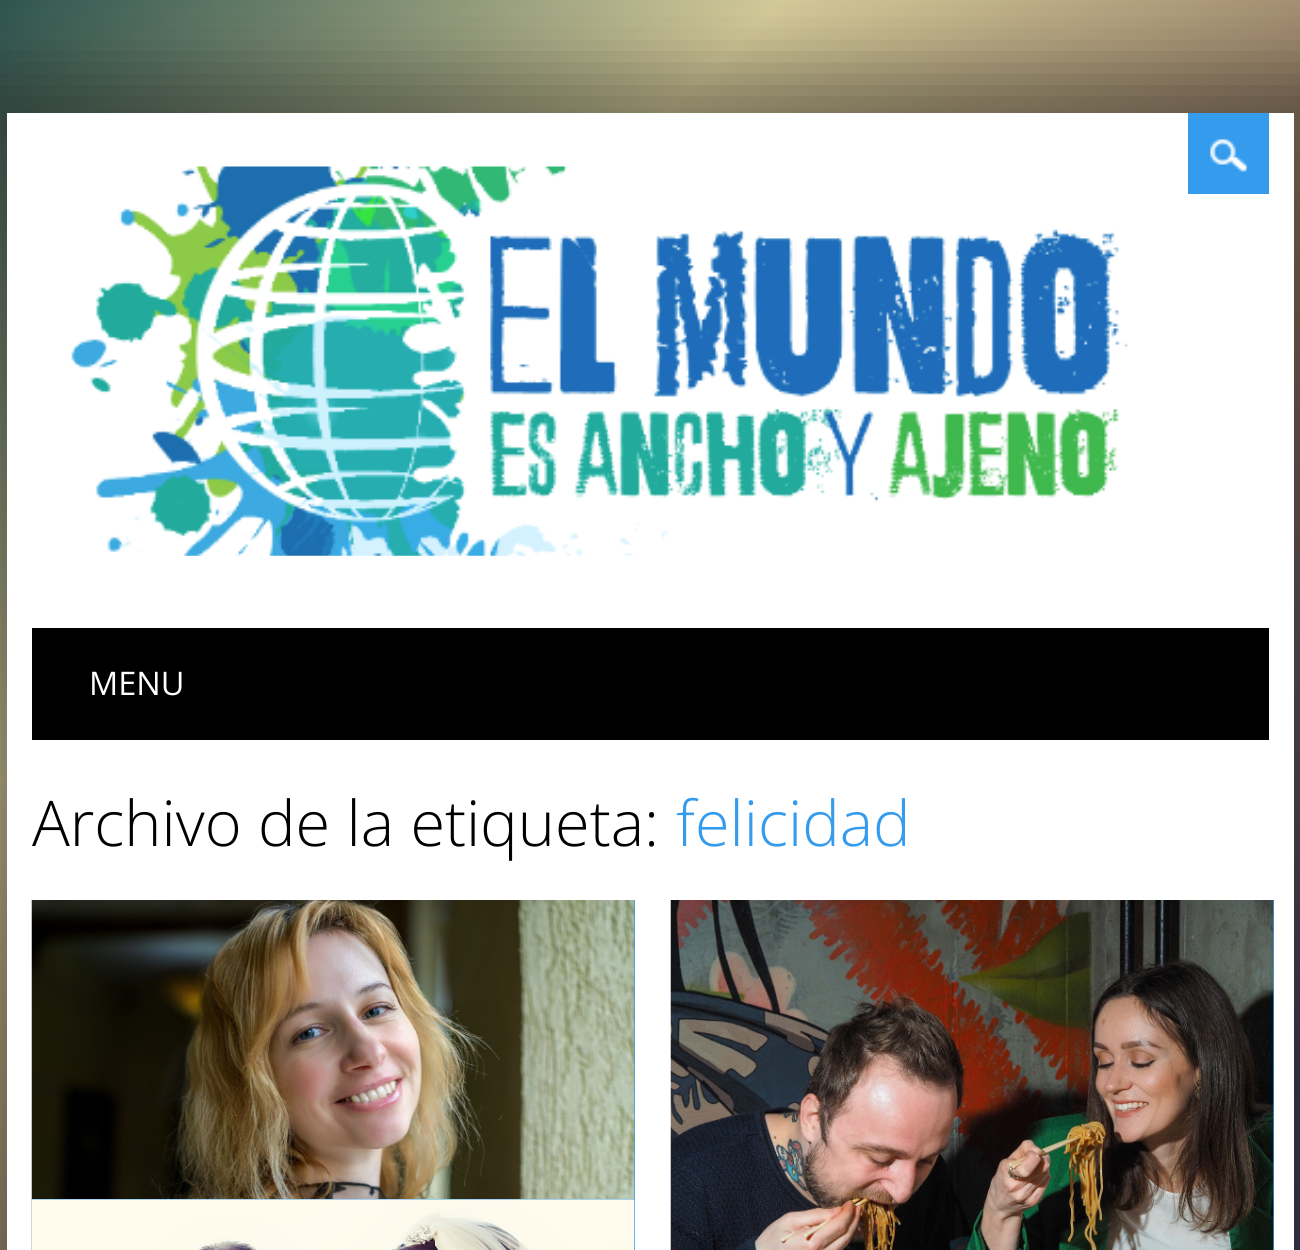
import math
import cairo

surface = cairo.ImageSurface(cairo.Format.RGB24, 1300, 1250)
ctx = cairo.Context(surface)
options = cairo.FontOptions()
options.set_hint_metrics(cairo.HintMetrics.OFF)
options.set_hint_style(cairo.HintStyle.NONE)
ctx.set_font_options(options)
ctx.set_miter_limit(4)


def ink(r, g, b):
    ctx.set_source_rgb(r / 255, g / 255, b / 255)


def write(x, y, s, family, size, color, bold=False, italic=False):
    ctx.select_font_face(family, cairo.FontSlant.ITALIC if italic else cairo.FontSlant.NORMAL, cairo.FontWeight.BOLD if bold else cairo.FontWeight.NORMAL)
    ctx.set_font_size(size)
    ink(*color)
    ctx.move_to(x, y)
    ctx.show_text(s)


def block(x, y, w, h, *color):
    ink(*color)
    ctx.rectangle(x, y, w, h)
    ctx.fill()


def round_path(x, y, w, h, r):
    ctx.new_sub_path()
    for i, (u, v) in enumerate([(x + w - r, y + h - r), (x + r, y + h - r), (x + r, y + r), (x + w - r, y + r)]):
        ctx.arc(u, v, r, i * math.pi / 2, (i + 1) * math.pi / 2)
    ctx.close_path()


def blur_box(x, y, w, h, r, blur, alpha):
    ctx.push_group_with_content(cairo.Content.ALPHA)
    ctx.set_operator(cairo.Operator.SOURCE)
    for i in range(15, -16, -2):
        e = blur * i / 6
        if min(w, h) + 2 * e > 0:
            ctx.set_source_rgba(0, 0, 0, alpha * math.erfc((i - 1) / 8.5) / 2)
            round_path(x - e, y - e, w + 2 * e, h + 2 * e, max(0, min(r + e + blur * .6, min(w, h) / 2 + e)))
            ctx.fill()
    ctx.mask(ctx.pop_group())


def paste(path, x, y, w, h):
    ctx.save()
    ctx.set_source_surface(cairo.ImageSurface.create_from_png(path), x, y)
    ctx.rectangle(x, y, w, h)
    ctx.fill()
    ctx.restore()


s1 = dict(family="Open Sans", size=32.5, color=(255, 255, 255))
s2 = dict(family="Open Sans Light", size=63, color=(0, 0, 0))
s3 = dict(family="Open Sans Light", size=63, color=(53, 155, 237))

ink(255, 255, 255)
ctx.paint()
gradient = cairo.LinearGradient(-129, 129, 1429, 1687)
gradient.add_color_stop_rgba(0, 0.18, 0.333, 0.314, 1)
gradient.add_color_stop_rgba(0.25, 0.831, 0.792, 0.6, 1)
gradient.add_color_stop_rgba(0.5, 0.553, 0.447, 0.373, 1)
gradient.add_color_stop_rgba(0.76, 0.278, 0.247, 0.361, 1)
gradient.add_color_stop_rgba(1, 0.161, 0.306, 0.369, 1)
ctx.set_source(gradient)
ctx.rectangle(0, 0, 1300, 1250)
ctx.fill()
ink(10, 10, 10)
blur_box(-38, 68, 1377, 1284, 0, 34, 0.4)
block(7, 113, 1287, 1137, 255, 255, 255)
block(1188, 113, 81, 81, 53, 155, 237)
paste("pic1.png", 1210, 139, 38, 33)
paste("pic2.png", 71, 166, 1057, 390)
block(32, 628, 1237, 112, 0, 0, 0)
write(89, 695, "MENU", **s1)
write(32, 846, "Archivo de la etiqueta:", **s2)
write(676, 846, "felicidad", **s3)
block(634, 900, 1, 299, 53, 155, 237)
paste("pic3.png", 31, 900, 604, 350)
block(1273, 900, 1, 350, 53, 155, 237)
paste("pic4.png", 670, 900, 604, 350)
block(32, 1199, 603, 51, 53, 155, 237)
paste("pic5.png", 31, 1199, 604, 51)
surface.write_to_png("screenshot.png")
